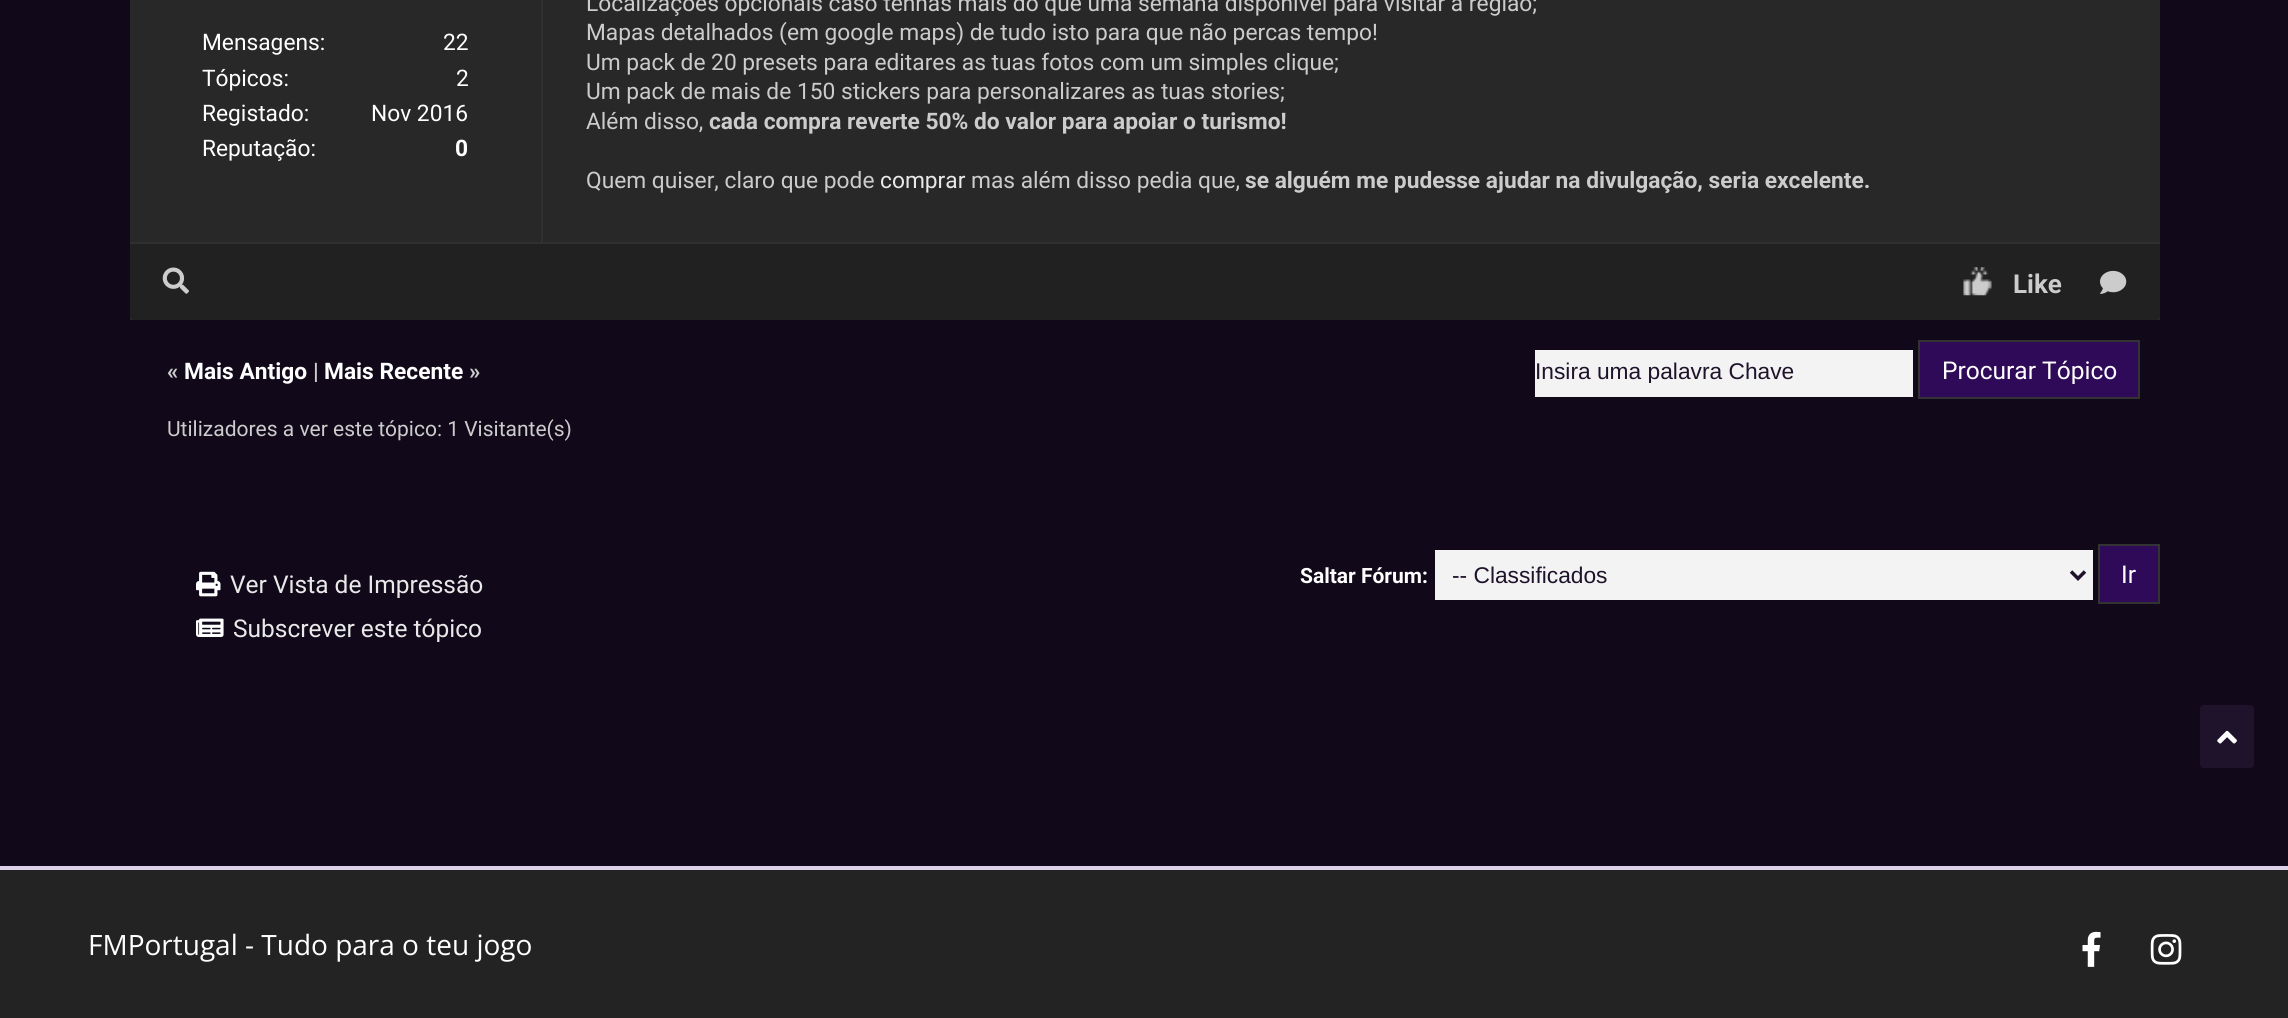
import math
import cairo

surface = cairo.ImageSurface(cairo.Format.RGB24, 2288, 1018)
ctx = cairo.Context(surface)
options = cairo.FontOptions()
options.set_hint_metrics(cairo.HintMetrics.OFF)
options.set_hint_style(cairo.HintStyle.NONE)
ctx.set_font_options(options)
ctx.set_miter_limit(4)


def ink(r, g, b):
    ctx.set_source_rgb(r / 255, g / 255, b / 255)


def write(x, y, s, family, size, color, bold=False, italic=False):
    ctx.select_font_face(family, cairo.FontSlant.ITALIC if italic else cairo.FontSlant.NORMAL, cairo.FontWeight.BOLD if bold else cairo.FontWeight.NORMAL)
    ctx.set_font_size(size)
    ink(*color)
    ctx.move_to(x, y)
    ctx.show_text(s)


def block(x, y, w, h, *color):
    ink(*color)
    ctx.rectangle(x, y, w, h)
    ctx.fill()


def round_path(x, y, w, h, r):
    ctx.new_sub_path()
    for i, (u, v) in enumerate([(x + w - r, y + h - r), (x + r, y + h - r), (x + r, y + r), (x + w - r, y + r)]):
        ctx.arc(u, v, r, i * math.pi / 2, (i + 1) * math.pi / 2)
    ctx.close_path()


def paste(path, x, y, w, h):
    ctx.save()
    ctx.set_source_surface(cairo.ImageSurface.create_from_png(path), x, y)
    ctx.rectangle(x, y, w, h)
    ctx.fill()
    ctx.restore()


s1 = dict(family="Roboto", size=22.75, color=(255, 255, 255))
s2 = dict(family="Roboto", size=22.75, color=(255, 255, 255), bold=True)
s3 = dict(family="Roboto", size=22.75, color=(204, 204, 204))
s4 = dict(family="Roboto", size=22.75, color=(204, 204, 204), bold=True)
s5 = dict(family="Roboto", size=22.75, color=(233, 233, 233))
s6 = dict(family="Roboto", size=26, color=(204, 204, 204), bold=True)
s7 = dict(family="Roboto", size=21, color=(204, 204, 204))
s8 = dict(family="Liberation Sans", size=22.75, color=(31, 19, 44))
s9 = dict(family="Roboto", size=24.5, color=(255, 255, 255))
s10 = dict(family="Roboto", size=24.5, color=(233, 233, 233))
s11 = dict(family="Roboto", size=21, color=(255, 255, 255), bold=True)
s12 = dict(family="Open Sans", size=28, color=(255, 255, 255))

ink(17, 9, 26)
ctx.paint()
block(130, 0, 2030, 320, 40, 40, 40)
block(541, 0, 2, 242, 48, 48, 48)
write(202, 50, "Mensagens:", **s1)
write(443, 50, "22", **s1)
write(202, 86, "Tópicos:", **s1)
write(456, 86, "2", **s1)
write(202, 121, "Registado:", **s1)
write(371, 121, "Nov 2016", **s1)
write(202, 156, "Reputação:", **s1)
write(455, 156, "0", **s2)
write(586, 11, "Localizações opcionais caso tenhas mais do que uma semana disponível para visitar a região;", **s3)
write(586, 40, "Mapas detalhados (em google maps) de tudo isto para que não percas tempo!", **s3)
write(586, 70, "Um pack de 20 presets para editares as tuas fotos com um simples clique;", **s3)
write(586, 99, "Um pack de mais de 150 stickers para personalizares as tuas stories;", **s3)
write(586, 129, "Além disso,", **s3)
write(709, 129, "cada compra reverte 50% do valor para apoiar o turismo!", **s4)
write(586, 188, "Quem quiser, claro que pode", **s3)
write(880, 188, "comprar", **s5)
write(971, 188, "mas além disso pedia que,", **s3)
write(1245, 188, "se alguém me pudesse ajudar na divulgação, seria excelente.", **s4)
ink(33, 33, 33)
ctx.new_path()
ctx.move_to(130, 242)
ctx.line_to(2160, 242)
ctx.line_to(2160, 316)
ctx.curve_to(2160, 318, 2158, 320, 2156, 320)
ctx.line_to(134, 320)
ctx.curve_to(132, 320, 130, 318, 130, 316)
ctx.close_path()
ctx.fill()
block(130, 242, 2030, 2, 48, 48, 48)
paste("pic1.png", 162, 267, 27, 27)
paste("pic2.png", 1963, 267, 29, 29)
write(2013, 293, "Like", **s6)
paste("pic3.png", 2100, 270, 27, 24)
write(167, 379, "«", **s4)
write(184, 379, "Mais Antigo", **s2)
write(313, 379, "|", **s4)
write(324, 379, "Mais Recente", **s2)
write(469, 379, "»", **s4)
write(167, 436, "Utilizadores a ver este tópico: 1 Visitante(s)", **s7)
block(1535, 350, 378, 47, 243, 243, 243)
ctx.save()
ctx.rectangle(1535, 357, 378, 26)
ctx.clip()
write(1535, 379, "Insira uma palavra Chave", **s8)
ctx.restore()
ink(47, 10, 88)
ctx.rectangle(1919, 341, 220, 57)
ctx.fill_preserve()
ink(51, 51, 51)
ctx.stroke()
write(1942, 379, "Procurar Tópico", **s9)
paste("pic4.png", 196, 571, 25, 26)
write(230, 593, "Ver Vista de Impressão", **s10)
paste("pic5.png", 196, 618, 28, 19)
write(233, 637, "Subscrever este tópico", **s10)
write(1300, 583, "Saltar Fórum:", **s11)
block(1435, 550, 658, 50, 243, 243, 243)
ctx.new_path()
ctx.move_to(2071, 571.5)
ctx.line_to(2078, 578.5)
ctx.line_to(2085, 571.5)
ink(31, 19, 44)
ctx.set_line_width(3.5)
ctx.stroke()
write(1452, 583, "-- Classificados", **s8)
ink(47, 10, 88)
ctx.rectangle(2099, 545, 60, 58)
ctx.fill_preserve()
ink(51, 51, 51)
ctx.set_line_width(2)
ctx.stroke()
write(2121, 583, "Ir", **s9)
block(0, 870, 2288, 148, 35, 35, 35)
block(0, 866, 2288, 4, 222, 210, 234)
ink(31, 19, 44)
round_path(2200, 705, 54, 63, 4)
ctx.fill()
paste("pic6.png", 2217, 730, 20, 14)
write(88, 955, "FMPortugal - Tudo para o teu jogo", **s12)
paste("pic7.png", 2082, 931, 19, 36)
paste("pic8.png", 2150, 934, 32, 31)
surface.write_to_png("screenshot.png")
